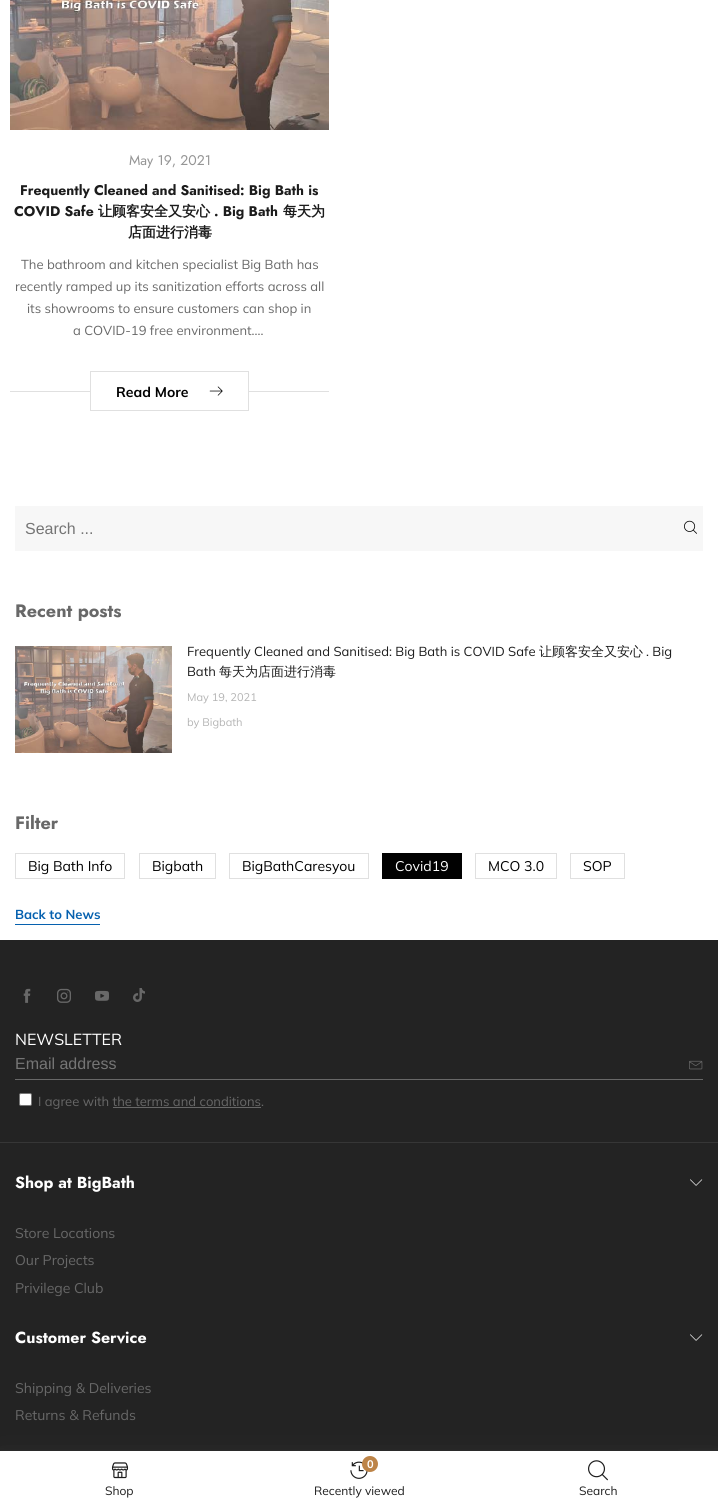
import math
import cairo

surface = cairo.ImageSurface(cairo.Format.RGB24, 718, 1506)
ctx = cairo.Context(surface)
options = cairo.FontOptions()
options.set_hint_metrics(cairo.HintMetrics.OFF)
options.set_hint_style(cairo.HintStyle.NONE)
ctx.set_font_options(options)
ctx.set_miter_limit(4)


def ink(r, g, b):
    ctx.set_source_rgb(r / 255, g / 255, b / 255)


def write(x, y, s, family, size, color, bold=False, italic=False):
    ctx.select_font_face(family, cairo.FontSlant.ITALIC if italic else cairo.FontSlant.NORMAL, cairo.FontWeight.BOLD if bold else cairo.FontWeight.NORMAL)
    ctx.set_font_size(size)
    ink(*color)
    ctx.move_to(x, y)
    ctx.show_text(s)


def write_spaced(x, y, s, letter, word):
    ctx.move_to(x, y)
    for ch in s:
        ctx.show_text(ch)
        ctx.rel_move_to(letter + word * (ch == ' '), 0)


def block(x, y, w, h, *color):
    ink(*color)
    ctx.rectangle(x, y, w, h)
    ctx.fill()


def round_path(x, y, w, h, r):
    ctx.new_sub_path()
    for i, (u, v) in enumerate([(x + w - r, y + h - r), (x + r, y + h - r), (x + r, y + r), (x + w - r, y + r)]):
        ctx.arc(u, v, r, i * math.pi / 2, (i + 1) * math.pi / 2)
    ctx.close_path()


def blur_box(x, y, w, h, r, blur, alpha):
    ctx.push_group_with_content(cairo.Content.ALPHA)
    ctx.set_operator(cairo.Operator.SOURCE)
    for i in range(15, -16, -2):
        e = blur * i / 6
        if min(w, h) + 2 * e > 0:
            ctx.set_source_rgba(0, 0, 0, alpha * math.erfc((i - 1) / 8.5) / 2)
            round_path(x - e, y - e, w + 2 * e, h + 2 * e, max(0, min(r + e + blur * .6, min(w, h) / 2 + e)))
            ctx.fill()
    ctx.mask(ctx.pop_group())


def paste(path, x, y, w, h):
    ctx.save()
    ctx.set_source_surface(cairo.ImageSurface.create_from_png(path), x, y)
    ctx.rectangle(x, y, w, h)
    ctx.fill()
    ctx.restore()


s1 = dict(family="Jost", size=14, color=(149, 149, 149))
s2 = dict(family="Jost", size=14, color=(28, 28, 28), bold=True)
s3 = dict(family="WenQuanYi Zen Hei", size=14, color=(28, 28, 28), bold=True)
s4 = dict(family="Muli", size=13, color=(104, 104, 104))
s5 = dict(family="Muli", size=14, color=(0, 0, 0), bold=True)
s6 = dict(family="Liberation Sans", size=16, color=(117, 117, 117))
s7 = dict(family="Jost", size=18, color=(104, 104, 104), bold=True)
s8 = dict(family="Muli", size=13, color=(28, 28, 28))
s9 = dict(family="WenQuanYi Zen Hei Medium", size=13, color=(28, 28, 28))
s10 = dict(family="Muli", size=11, color=(180, 180, 180))
s11 = dict(family="Muli", size=14, color=(0, 0, 0))
s12 = dict(family="Muli", size=14, color=(255, 255, 255))
s13 = dict(family="Muli", size=13, color=(6, 97, 175), bold=True)
s14 = dict(family="Muli", size=16, color=(255, 255, 255))
s15 = dict(family="Jost", size=16, color=(255, 255, 255), bold=True)
s16 = dict(family="Muli", size=14, color=(104, 104, 104))
s17 = dict(family="Muli", size=12, color=(28, 28, 28))

ink(255, 255, 255)
ctx.paint()
paste("pic1.png", 10, 0, 319, 130)
write(129, 165, "May 19, 2021", **s1)
write(20, 195, "Frequently Cleaned and Sanitised: Big Bath is", **s2)
write(14, 216, "COVID Safe", **s2)
write(98, 216, "让顾客安全又安心", **s3)
write(214, 216, ". Big Bath", **s2)
write(283, 216, "每天为", **s3)
write(128, 237, "店面进行消毒", **s3)
write(21, 269, "The bathroom and kitchen specialist Big Bath has", **s4)
write(15, 291, "recently ramped up its sanitization efforts across all", **s4)
write(27, 313, "its showrooms to ensure customers can shop in", **s4)
write(73, 335, "a COVID-19 free environment....", **s4)
block(10, 391, 319, 1, 224, 224, 224)
block(91, 391, 157, 1, 255, 255, 255)
ctx.rectangle(90.5, 371.5, 158, 39)
ink(224, 224, 224)
ctx.set_line_width(1)
ctx.stroke()
write(116, 397, "Read More", **s5)
paste("pic2.png", 209, 386, 14, 10)
block(15, 506, 688, 45, 247, 247, 247)
write(25, 534, "Search ...", **s6)
paste("pic3.png", 684, 520, 13, 14)
write(15, 617, "Recent posts", **s7)
paste("pic4.png", 15, 646, 157, 107)
write(187, 656, "Frequently Cleaned and Sanitised: Big Bath is COVID Safe", **s8)
write(539, 656, "让顾客安全又安心", **s9)
write(646, 656, ". Big", **s8)
write(187, 676, "Bath", **s8)
write(219, 676, "每天为店面进行消毒", **s9)
write(187, 701, "May 19, 2021", **s10)
write(187, 726, "by Bigbath", **s10)
write(15, 829, "Filter", **s7)
ctx.rectangle(15.5, 853.5, 109, 25)
ink(224, 224, 224)
ctx.stroke()
write(28, 871, "Big Bath Info", **s11)
ctx.rectangle(139.5, 853.5, 76, 25)
ink(224, 224, 224)
ctx.stroke()
write(152, 871, "Bigbath", **s11)
ctx.rectangle(229.5, 853.5, 139, 25)
ink(224, 224, 224)
ctx.stroke()
write(242, 871, "BigBathCaresyou", **s11)
block(382, 853, 80, 26, 1, 1, 1)
write(395, 871, "Covid19", **s12)
ctx.rectangle(475.5, 853.5, 81, 25)
ink(224, 224, 224)
ctx.stroke()
write(488, 871, "MCO 3.0", **s11)
ctx.rectangle(570.5, 853.5, 54, 25)
ink(224, 224, 224)
ctx.stroke()
write(583, 871, "SOP", **s11)
write(15, 919, "Back to News", **s13)
block(15, 924, 85, 1, 6, 97, 175)
block(0, 940, 718, 511, 35, 35, 35)
paste("pic5.png", 23, 988, 8, 15)
paste("pic6.png", 57, 988, 14, 15)
paste("pic7.png", 95, 990, 14, 11)
paste("pic8.png", 133, 988, 12, 14)
write(15, 1045, "NEWSLETTER", **s14)
block(15, 1079, 688, 1, 104, 104, 104)
write(15, 1069, "Email address", **s6)
paste("pic9.png", 689, 1060, 14, 10)
ink(255, 255, 255)
round_path(19.5, 1093.5, 12, 12, 1.5)
ctx.fill_preserve()
ink(118, 118, 118)
ctx.stroke()
write(38, 1106, "I agree with the terms and conditions.", **s4)
block(113, 1107, 148, 1, 104, 104, 104)
block(0, 1142, 718, 1, 54, 54, 54)
write(15, 1188, "Shop at BigBath", **s15)
paste("pic10.png", 690, 1179, 13, 7)
write(15, 1238, "Store Locations", **s16)
write(15, 1265, "Our Projects", **s16)
write(15, 1293, "Privilege Club", **s16)
write(15, 1343, "Customer Service", **s15)
paste("pic10.png", 690, 1334, 13, 7)
write(15, 1393, "Shipping & Deliveries", **s16)
write(15, 1420, "Returns & Refunds", **s16)
ink(104, 104, 104)
blur_box(0, 1451, 718, 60, 0, 1.5, 0.15)
blur_box(680, 1451, 38, 38, 0, 1.5, 0.15)
blur_box(0, 1450, 718, 55, 0, 9.5, 0.1)
block(0, 1451, 718, 55, 255, 255, 255)
paste("pic11.png", 111, 1462, 18, 17)
write(105, 1495, "Shop", **s17)
paste("pic12.png", 350, 1461, 18, 18)
ink(189, 132, 72)
ctx.arc(370, 1464, 8, 0, 2 * math.pi)
ctx.fill()
ctx.select_font_face("Muli", cairo.FontSlant.NORMAL, cairo.FontWeight.BOLD)
ctx.set_font_size(11)
ink(255, 255, 255)
write_spaced(367, 1468, "0", -1, 0)
write(314, 1495, "Recently viewed", **s17)
paste("pic13.png", 588, 1460, 20, 21)
write(579, 1495, "Search", **s17)
surface.write_to_png("screenshot.png")
